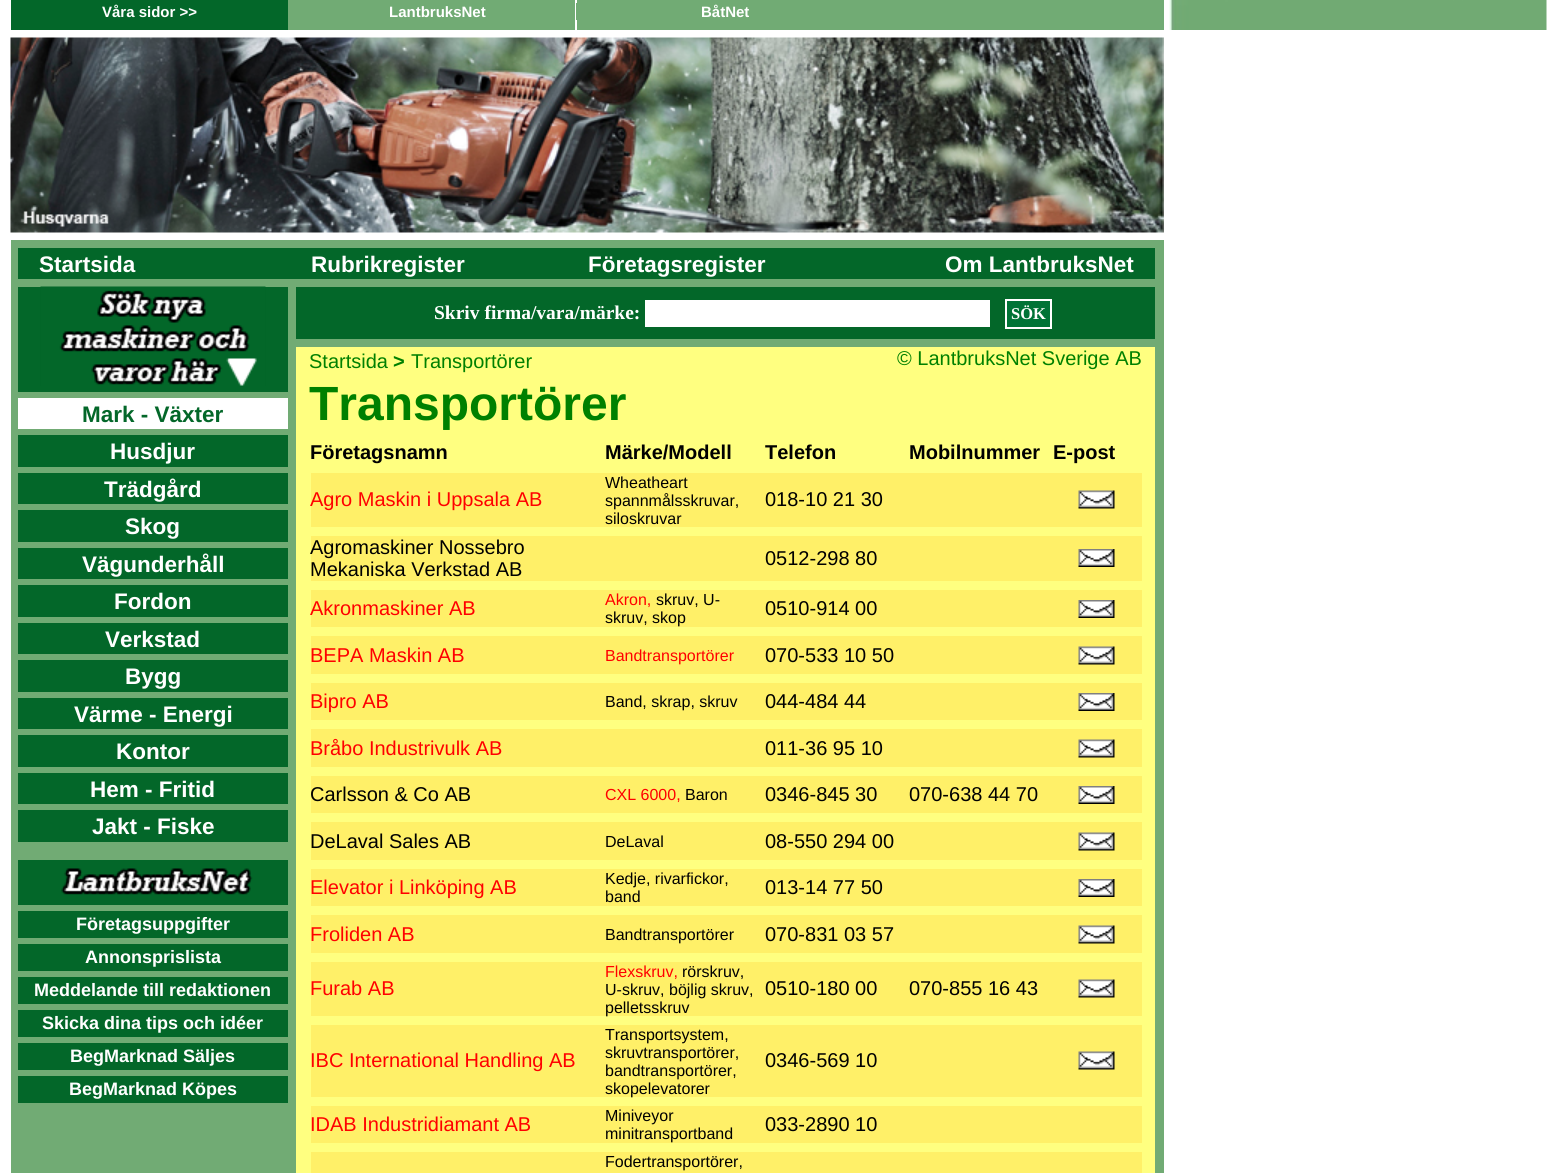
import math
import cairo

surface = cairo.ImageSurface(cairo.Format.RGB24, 1556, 1173)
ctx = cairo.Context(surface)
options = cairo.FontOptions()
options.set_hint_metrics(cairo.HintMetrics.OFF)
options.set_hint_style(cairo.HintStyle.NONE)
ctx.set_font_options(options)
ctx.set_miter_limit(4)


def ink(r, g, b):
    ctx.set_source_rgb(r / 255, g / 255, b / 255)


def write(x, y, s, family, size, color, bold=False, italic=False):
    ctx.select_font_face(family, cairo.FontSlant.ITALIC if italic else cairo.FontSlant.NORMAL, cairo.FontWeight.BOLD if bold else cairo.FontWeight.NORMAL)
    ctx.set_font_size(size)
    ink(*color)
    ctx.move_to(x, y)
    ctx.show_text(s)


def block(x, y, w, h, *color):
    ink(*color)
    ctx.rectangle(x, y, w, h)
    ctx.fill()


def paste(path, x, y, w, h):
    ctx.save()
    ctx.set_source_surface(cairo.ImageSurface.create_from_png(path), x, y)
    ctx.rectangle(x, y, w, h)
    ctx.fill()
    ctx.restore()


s1 = dict(family="Liberation Sans", size=15, color=(255, 255, 255), bold=True)
s2 = dict(family="Liberation Sans", size=22.5, color=(255, 255, 255), bold=True)
s3 = dict(family="Liberation Sans", size=22.5, color=(3, 103, 41), bold=True)
s4 = dict(family="Liberation Sans", size=18, color=(255, 255, 255), bold=True)
s5 = dict(family="Liberation Serif", size=19.5, color=(255, 255, 255), bold=True)
s6 = dict(family="Liberation Serif", size=16.5, color=(255, 255, 255), bold=True)
s7 = dict(family="Liberation Sans", size=20, color=(0, 128, 0))
s8 = dict(family="Liberation Sans", size=20, color=(0, 128, 0), bold=True)
s9 = dict(family="Liberation Sans", size=48, color=(0, 128, 0), bold=True)
s10 = dict(family="Liberation Sans", size=20, color=(0, 0, 0), bold=True)
s11 = dict(family="Liberation Sans", size=20, color=(255, 0, 0))
s12 = dict(family="Liberation Sans", size=16, color=(0, 0, 0))
s13 = dict(family="Liberation Sans", size=20, color=(0, 0, 0))
s14 = dict(family="Liberation Sans", size=16, color=(255, 0, 0))

ink(255, 255, 255)
ctx.paint()
block(288, 0, 876, 30, 113, 171, 116)
block(11, 0, 277, 30, 3, 103, 41)
write(102, 17, "Våra sidor >>", **s1)
block(575, 0, 2, 30, 255, 255, 255)
write(389, 17, "LantbruksNet", **s1)
block(576, 3, 1, 17, 113, 171, 116)
write(701, 17, "BåtNet", **s1)
paste("pic1.png", 1169, 0, 378, 30)
paste("pic2.png", 10, 37, 1154, 196)
block(11, 240, 1153, 933, 113, 171, 116)
block(18, 248, 1137, 31, 3, 103, 41)
write(39, 272, "Startsida", **s2)
write(311, 272, "Rubrikregister", **s2)
write(588, 272, "Företagsregister", **s2)
write(945, 272, "Om LantbruksNet", **s2)
block(18, 287, 270, 105, 3, 103, 41)
paste("pic3.png", 40, 286, 226, 100)
block(18, 398, 270, 31, 255, 255, 255)
write(82, 422, "Mark - Växter", **s3)
block(18, 435, 270, 32, 3, 103, 41)
write(110, 459, "Husdjur", **s2)
block(18, 473, 270, 31, 3, 103, 41)
write(104, 497, "Trädgård", **s2)
block(18, 510, 270, 32, 3, 103, 41)
write(125, 534, "Skog", **s2)
block(18, 548, 270, 31, 3, 103, 41)
write(82, 572, "Vägunderhåll", **s2)
block(18, 585, 270, 32, 3, 103, 41)
write(114, 609, "Fordon", **s2)
block(18, 623, 270, 31, 3, 103, 41)
write(105, 647, "Verkstad", **s2)
block(18, 660, 270, 32, 3, 103, 41)
write(125, 684, "Bygg", **s2)
block(18, 698, 270, 31, 3, 103, 41)
write(74, 722, "Värme - Energi", **s2)
block(18, 735, 270, 32, 3, 103, 41)
write(116, 759, "Kontor", **s2)
block(18, 773, 270, 31, 3, 103, 41)
write(90, 797, "Hem - Fritid", **s2)
block(18, 810, 270, 32, 3, 103, 41)
write(92, 834, "Jakt - Fiske", **s2)
block(18, 860, 270, 45, 3, 103, 41)
paste("pic4.png", 61, 868, 192, 27)
block(18, 911, 270, 27, 3, 103, 41)
write(76, 930, "Företagsuppgifter", **s4)
block(18, 944, 270, 27, 3, 103, 41)
write(85, 963, "Annonsprislista", **s4)
block(18, 977, 270, 27, 3, 103, 41)
write(34, 996, "Meddelande till redaktionen", **s4)
block(18, 1010, 270, 27, 3, 103, 41)
write(42, 1029, "Skicka dina tips och idéer", **s4)
block(18, 1043, 270, 27, 3, 103, 41)
write(70, 1062, "BegMarknad Säljes", **s4)
block(18, 1076, 270, 27, 3, 103, 41)
write(69, 1095, "BegMarknad Köpes", **s4)
block(296, 287, 859, 52, 3, 103, 41)
write(434, 319, "Skriv firma/vara/märke:", **s5)
block(645, 300, 345, 27, 255, 255, 255)
ink(0, 115, 54)
ctx.rectangle(1006, 300, 45, 28)
ctx.fill_preserve()
ink(255, 255, 255)
ctx.stroke()
write(1011, 319, "SÖK", **s6)
block(296, 347, 859, 826, 255, 255, 128)
write(309, 368, "Startsida", **s7)
write(393, 368, ">", **s8)
write(411, 368, "Transportörer", **s7)
write(897, 365, "© LantbruksNet Sverige AB", **s7)
write(309, 420, "Transportörer", **s9)
write(310, 459, "Företagsnamn", **s10)
write(605, 459, "Märke/Modell", **s10)
write(765, 459, "Telefon", **s10)
write(909, 459, "Mobilnummer", **s10)
write(1053, 459, "E-post", **s10)
block(311, 473, 831, 54, 255, 240, 104)
write(310, 506, "Agro Maskin i Uppsala AB", **s11)
write(605, 488, "Wheatheart", **s12)
write(605, 506, "spannmålsskruvar,", **s12)
write(605, 524, "siloskruvar", **s12)
write(765, 506, "018-10 21 30", **s13)
paste("pic5.png", 1078, 490, 37, 19)
block(311, 536, 831, 45, 255, 240, 104)
write(310, 554, "Agromaskiner Nossebro", **s13)
write(310, 576, "Mekaniska Verkstad AB", **s13)
write(765, 565, "0512-298 80", **s13)
paste("pic6.png", 1078, 549, 37, 18)
block(311, 590, 831, 37, 255, 240, 104)
write(310, 615, "Akronmaskiner AB", **s11)
write(605, 605, "Akron,", **s14)
write(656, 605, "skruv, U-", **s12)
write(605, 623, "skruv, skop", **s12)
write(765, 615, "0510-914 00", **s13)
paste("pic6.png", 1078, 600, 37, 18)
block(311, 636, 831, 38, 255, 240, 104)
write(310, 662, "BEPA Maskin AB", **s11)
write(605, 661, "Bandtransportörer", **s14)
write(765, 662, "070-533 10 50", **s13)
paste("pic5.png", 1078, 646, 37, 19)
block(311, 683, 831, 37, 255, 240, 104)
write(310, 708, "Bipro AB", **s11)
write(605, 707, "Band, skrap, skruv", **s12)
write(765, 708, "044-484 44", **s13)
paste("pic6.png", 1078, 693, 37, 18)
block(311, 729, 831, 38, 255, 240, 104)
write(310, 755, "Bråbo Industrivulk AB", **s11)
write(765, 755, "011-36 95 10", **s13)
paste("pic5.png", 1078, 739, 37, 19)
block(311, 776, 831, 37, 255, 240, 104)
write(310, 801, "Carlsson & Co AB", **s13)
write(605, 800, "CXL 6000,", **s14)
write(685, 800, "Baron", **s12)
write(765, 801, "0346-845 30", **s13)
write(909, 801, "070-638 44 70", **s13)
paste("pic6.png", 1078, 786, 37, 18)
block(311, 822, 831, 38, 255, 240, 104)
write(310, 848, "DeLaval Sales AB", **s13)
write(605, 847, "DeLaval", **s12)
write(765, 848, "08-550 294 00", **s13)
paste("pic5.png", 1078, 832, 37, 19)
block(311, 869, 831, 37, 255, 240, 104)
write(310, 894, "Elevator i Linköping AB", **s11)
write(605, 884, "Kedje, rivarfickor,", **s12)
write(605, 902, "band", **s12)
write(765, 894, "013-14 77 50", **s13)
paste("pic6.png", 1078, 879, 37, 18)
block(311, 915, 831, 38, 255, 240, 104)
write(310, 941, "Froliden AB", **s11)
write(605, 940, "Bandtransportörer", **s12)
write(765, 941, "070-831 03 57", **s13)
paste("pic5.png", 1078, 925, 37, 19)
block(311, 962, 831, 54, 255, 240, 104)
write(310, 995, "Furab AB", **s11)
write(605, 977, "Flexskruv,", **s14)
write(682, 977, "rörskruv,", **s12)
write(605, 995, "U-skruv, böjlig skruv,", **s12)
write(605, 1013, "pelletsskruv", **s12)
write(765, 995, "0510-180 00", **s13)
write(909, 995, "070-855 16 43", **s13)
paste("pic5.png", 1078, 979, 37, 19)
block(311, 1025, 831, 72, 255, 240, 104)
write(310, 1067, "IBC International Handling AB", **s11)
write(605, 1040, "Transportsystem,", **s12)
write(605, 1058, "skruvtransportörer,", **s12)
write(605, 1076, "bandtransportörer,", **s12)
write(605, 1094, "skopelevatorer", **s12)
write(765, 1067, "0346-569 10", **s13)
paste("pic5.png", 1078, 1051, 37, 19)
block(311, 1106, 831, 37, 255, 240, 104)
write(310, 1131, "IDAB Industridiamant AB", **s11)
write(605, 1121, "Miniveyor", **s12)
write(605, 1139, "minitransportband", **s12)
write(765, 1131, "033-2890 10", **s13)
block(311, 1152, 831, 21, 255, 240, 104)
write(605, 1167, "Fodertransportörer,", **s12)
surface.write_to_png("screenshot.png")
